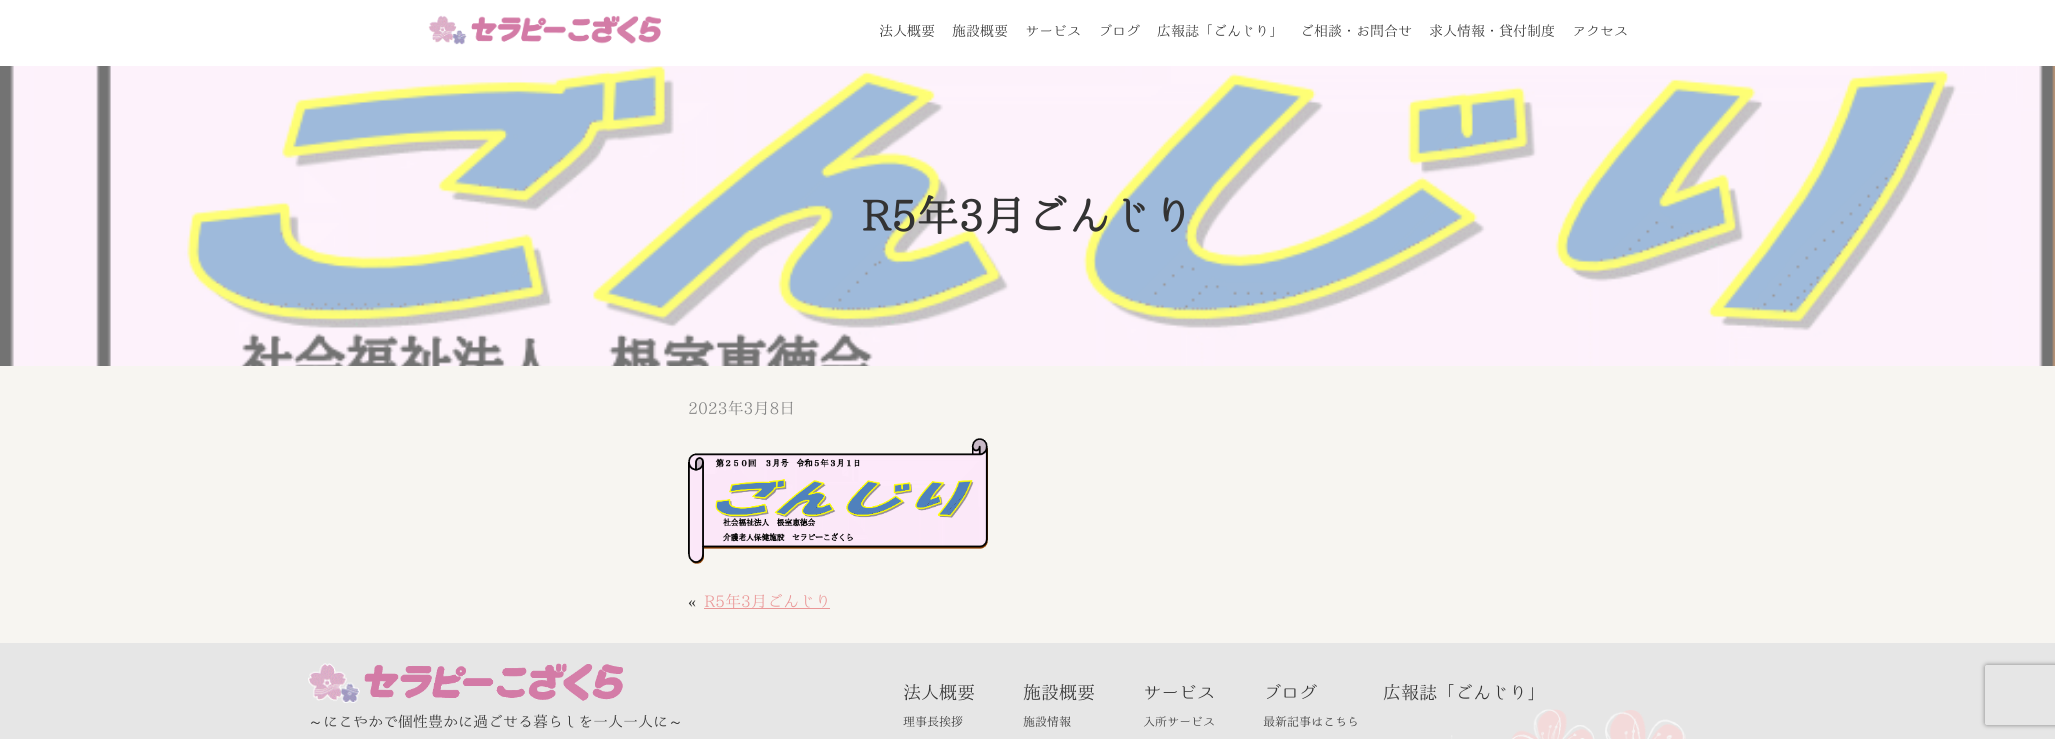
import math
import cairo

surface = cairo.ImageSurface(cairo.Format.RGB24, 2055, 739)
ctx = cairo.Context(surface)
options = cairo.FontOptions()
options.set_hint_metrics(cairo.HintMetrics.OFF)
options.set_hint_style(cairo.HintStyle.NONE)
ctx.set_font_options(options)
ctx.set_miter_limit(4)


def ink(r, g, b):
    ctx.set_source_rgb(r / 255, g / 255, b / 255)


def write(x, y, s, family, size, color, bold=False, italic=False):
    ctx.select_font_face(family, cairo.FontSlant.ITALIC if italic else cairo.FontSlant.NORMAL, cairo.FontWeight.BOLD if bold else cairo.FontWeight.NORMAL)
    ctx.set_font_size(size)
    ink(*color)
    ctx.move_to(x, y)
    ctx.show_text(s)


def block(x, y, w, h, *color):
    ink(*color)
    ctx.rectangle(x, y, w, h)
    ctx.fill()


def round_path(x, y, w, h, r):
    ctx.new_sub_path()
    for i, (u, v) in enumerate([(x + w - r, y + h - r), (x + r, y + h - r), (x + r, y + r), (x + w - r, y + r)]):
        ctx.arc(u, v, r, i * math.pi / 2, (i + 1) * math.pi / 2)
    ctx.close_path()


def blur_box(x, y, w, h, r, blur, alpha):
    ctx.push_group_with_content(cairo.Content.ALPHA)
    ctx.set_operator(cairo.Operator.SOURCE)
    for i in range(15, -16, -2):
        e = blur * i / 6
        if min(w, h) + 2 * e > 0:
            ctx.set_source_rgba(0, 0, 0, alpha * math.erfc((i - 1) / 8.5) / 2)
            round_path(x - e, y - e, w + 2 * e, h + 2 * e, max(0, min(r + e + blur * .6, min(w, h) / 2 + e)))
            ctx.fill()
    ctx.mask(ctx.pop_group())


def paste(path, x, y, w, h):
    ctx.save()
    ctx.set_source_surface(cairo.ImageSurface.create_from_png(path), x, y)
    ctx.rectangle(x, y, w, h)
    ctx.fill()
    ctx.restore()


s1 = dict(family="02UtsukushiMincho", size=14, color=(51, 51, 51))
s2 = dict(family="02UtsukushiMincho", size=42, color=(51, 51, 51), bold=True)
s3 = dict(family="02UtsukushiMincho", size=16, color=(128, 128, 128))
s4 = dict(family="Liberation Serif", size=16, color=(51, 51, 51))
s5 = dict(family="02UtsukushiMincho", size=16, color=(234, 152, 152))
s6 = dict(family="WenQuanYi Zen Hei Medium", size=15, color=(51, 51, 51))
s7 = dict(family="02UtsukushiMincho", size=15, color=(51, 51, 51))
s8 = dict(family="02UtsukushiMincho", size=18, color=(51, 51, 51))
s9 = dict(family="02UtsukushiMincho", size=12, color=(51, 51, 51))

ink(255, 255, 255)
ctx.paint()
paste("pic1.png", 428, 15, 234, 30)
write(879, 36, "法人概要", **s1)
write(952, 36, "施設概要", **s1)
write(1025, 36, "サービス", **s1)
write(1098, 36, "ブログ", **s1)
write(1157, 36, "広報誌「ごんじり」", **s1)
write(1300, 36, "ご相談・お問合せ", **s1)
write(1429, 36, "求人情報・貸付制度", **s1)
write(1572, 36, "アクセス", **s1)
paste("pic2.png", 0, 66, 2055, 300)
write(861, 231, "R5年3月ごんじり", **s2)
block(0, 366, 2055, 277, 247, 245, 241)
write(688, 414, "2023年3月8日", **s3)
paste("pic3.png", 688, 438, 300, 126)
write(688, 607, "«", **s4)
block(704, 608, 126, 1, 234, 152, 152)
write(704, 607, "R5年3月ごんじり", **s5)
block(0, 643, 2055, 96, 230, 230, 230)
paste("pic4.png", 308, 663, 52, 40)
paste("pic5.png", 364, 663, 259, 38)
write(308, 727, "～", **s6)
write(323, 727, "にこやかで個性豊かに過ごせる暮らしを一人一人に", **s7)
write(668, 727, "～", **s6)
paste("pic6.png", 1451, 709, 235, 30)
write(903, 699, "法人概要", **s8)
write(903, 726, "理事長挨拶", **s9)
write(1023, 699, "施設概要", **s8)
write(1023, 726, "施設情報", **s9)
write(1143, 699, "サービス", **s8)
write(1143, 726, "入所サービス", **s9)
write(1263, 699, "ブログ", **s8)
write(1263, 726, "最新記事はこちら", **s9)
write(1383, 699, "広報誌「ごんじり」", **s8)
ctx.save()
ctx.set_fill_rule(cairo.FillRule.EVEN_ODD)
ctx.new_path()
ctx.move_to(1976, 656)
ctx.line_to(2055, 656)
ctx.line_to(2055, 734)
ctx.line_to(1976, 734)
ctx.close_path()
ctx.move_to(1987, 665)
ctx.line_to(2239, 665)
ctx.curve_to(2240, 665, 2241, 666, 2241, 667)
ctx.line_to(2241, 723)
ctx.curve_to(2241, 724, 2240, 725, 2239, 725)
ctx.line_to(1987, 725)
ctx.curve_to(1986, 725, 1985, 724, 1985, 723)
ctx.line_to(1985, 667)
ctx.curve_to(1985, 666, 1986, 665, 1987, 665)
ctx.close_path()
ctx.clip()
ink(128, 128, 128)
blur_box(1985, 665, 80, 60, 2, 2.5, 1)
ctx.restore()
surface.write_to_png("screenshot.png")
